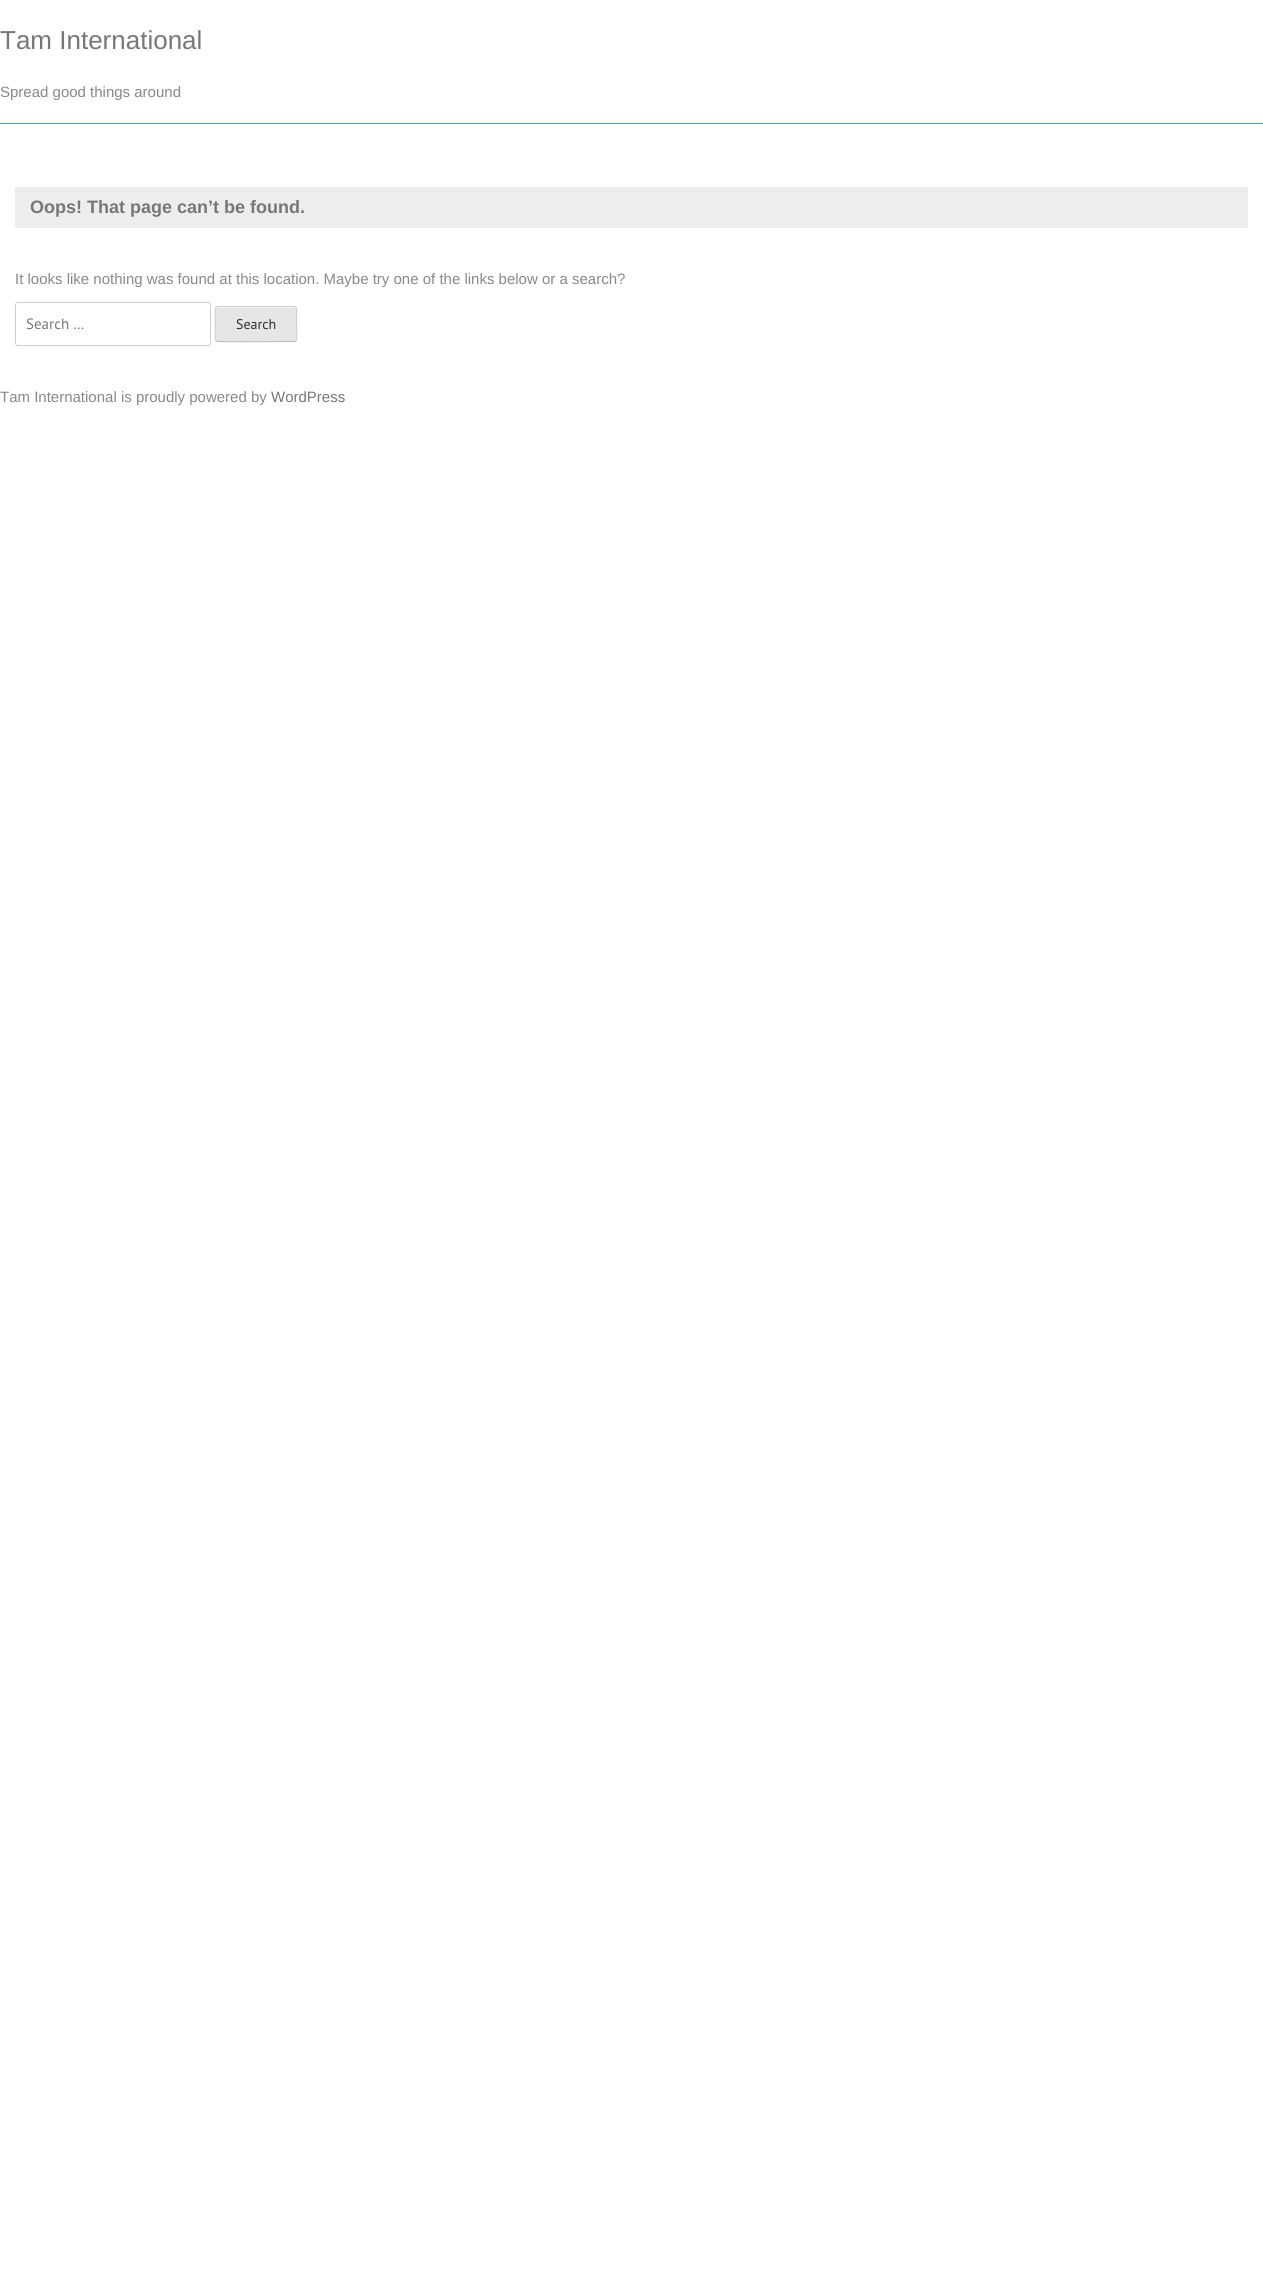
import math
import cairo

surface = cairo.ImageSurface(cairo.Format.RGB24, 1263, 2272)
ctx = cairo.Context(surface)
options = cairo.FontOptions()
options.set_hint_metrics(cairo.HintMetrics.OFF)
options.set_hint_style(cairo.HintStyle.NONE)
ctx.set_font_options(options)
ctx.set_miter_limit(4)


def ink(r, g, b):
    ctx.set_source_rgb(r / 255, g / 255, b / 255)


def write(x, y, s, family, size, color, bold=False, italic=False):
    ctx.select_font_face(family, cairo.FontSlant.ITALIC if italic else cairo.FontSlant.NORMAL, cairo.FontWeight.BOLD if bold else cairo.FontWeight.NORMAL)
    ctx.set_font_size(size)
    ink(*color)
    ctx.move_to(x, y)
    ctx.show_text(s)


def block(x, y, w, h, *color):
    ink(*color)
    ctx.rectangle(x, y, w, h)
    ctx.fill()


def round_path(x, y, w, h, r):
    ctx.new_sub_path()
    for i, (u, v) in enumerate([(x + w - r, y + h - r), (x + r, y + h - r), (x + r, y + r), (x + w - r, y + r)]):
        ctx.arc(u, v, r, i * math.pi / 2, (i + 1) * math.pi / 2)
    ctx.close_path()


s1 = dict(family="Liberation Sans", size=26, color=(119, 119, 119))
s2 = dict(family="Liberation Sans", size=15, color=(136, 136, 136))
s3 = dict(family="Liberation Sans", size=18, color=(119, 119, 119), bold=True)
s4 = dict(family="PT Sans", size=15, color=(119, 119, 119))
s5 = dict(family="PT Sans", size=14, color=(46, 46, 46))
s6 = dict(family="Liberation Sans", size=15, color=(119, 119, 119))

ink(255, 255, 255)
ctx.paint()
write(0, 49, "Tam International", **s1)
write(0, 97, "Spread good things around", **s2)
block(0, 123, 1263, 1, 64, 157, 216)
block(15, 187, 1233, 41, 237, 237, 237)
write(30, 213, "Oops! That page can’t be found.", **s3)
write(15, 284, "It looks like nothing was found at this location. Maybe try one of the links below or a search?", **s2)
round_path(15.5, 302.5, 195, 43, 2.5)
ink(204, 204, 204)
ctx.set_line_width(1)
ctx.stroke()
write(26, 329, "Search …", **s4)
ink(230, 230, 230)
round_path(215, 306, 82, 36, 3)
ctx.fill()
ink(243, 243, 243)
ctx.new_path()
ctx.move_to(218, 308)
ctx.line_to(294, 308)
ctx.curve_to(295, 308, 296, 309, 296, 310)
ctx.curve_to(296, 304, 284, 307, 281, 307)
ctx.line_to(231, 307)
ctx.curve_to(228, 307, 216, 304, 216, 310)
ctx.curve_to(216, 309, 217, 308, 218, 308)
ctx.close_path()
ctx.fill()
ctx.new_path()
ctx.move_to(296, 341)
ctx.line_to(294, 341.5)
ctx.line_to(281.5, 341.5)
ctx.curve_to(274.5, 341.5, 218.5, 342.5, 216.5, 341)
ctx.line_to(216, 341)
ink(187, 187, 187)
ctx.stroke()
ctx.new_path()
ctx.move_to(216, 341)
ctx.curve_to(214.5, 339, 215.5, 327, 215.5, 324)
ctx.curve_to(215.5, 303.5, 211.5, 306.5, 230.5, 306.5)
ctx.line_to(281.5, 306.5)
ctx.curve_to(300.5, 306.5, 296.5, 303.5, 296.5, 324)
ctx.curve_to(296.5, 327, 297.5, 339, 296, 341)
ink(204, 204, 204)
ctx.stroke()
write(236, 329, "Search", **s5)
write(0, 402, "Tam International is proudly powered by", **s2)
write(271, 402, "WordPress", **s6)
surface.write_to_png("screenshot.png")
